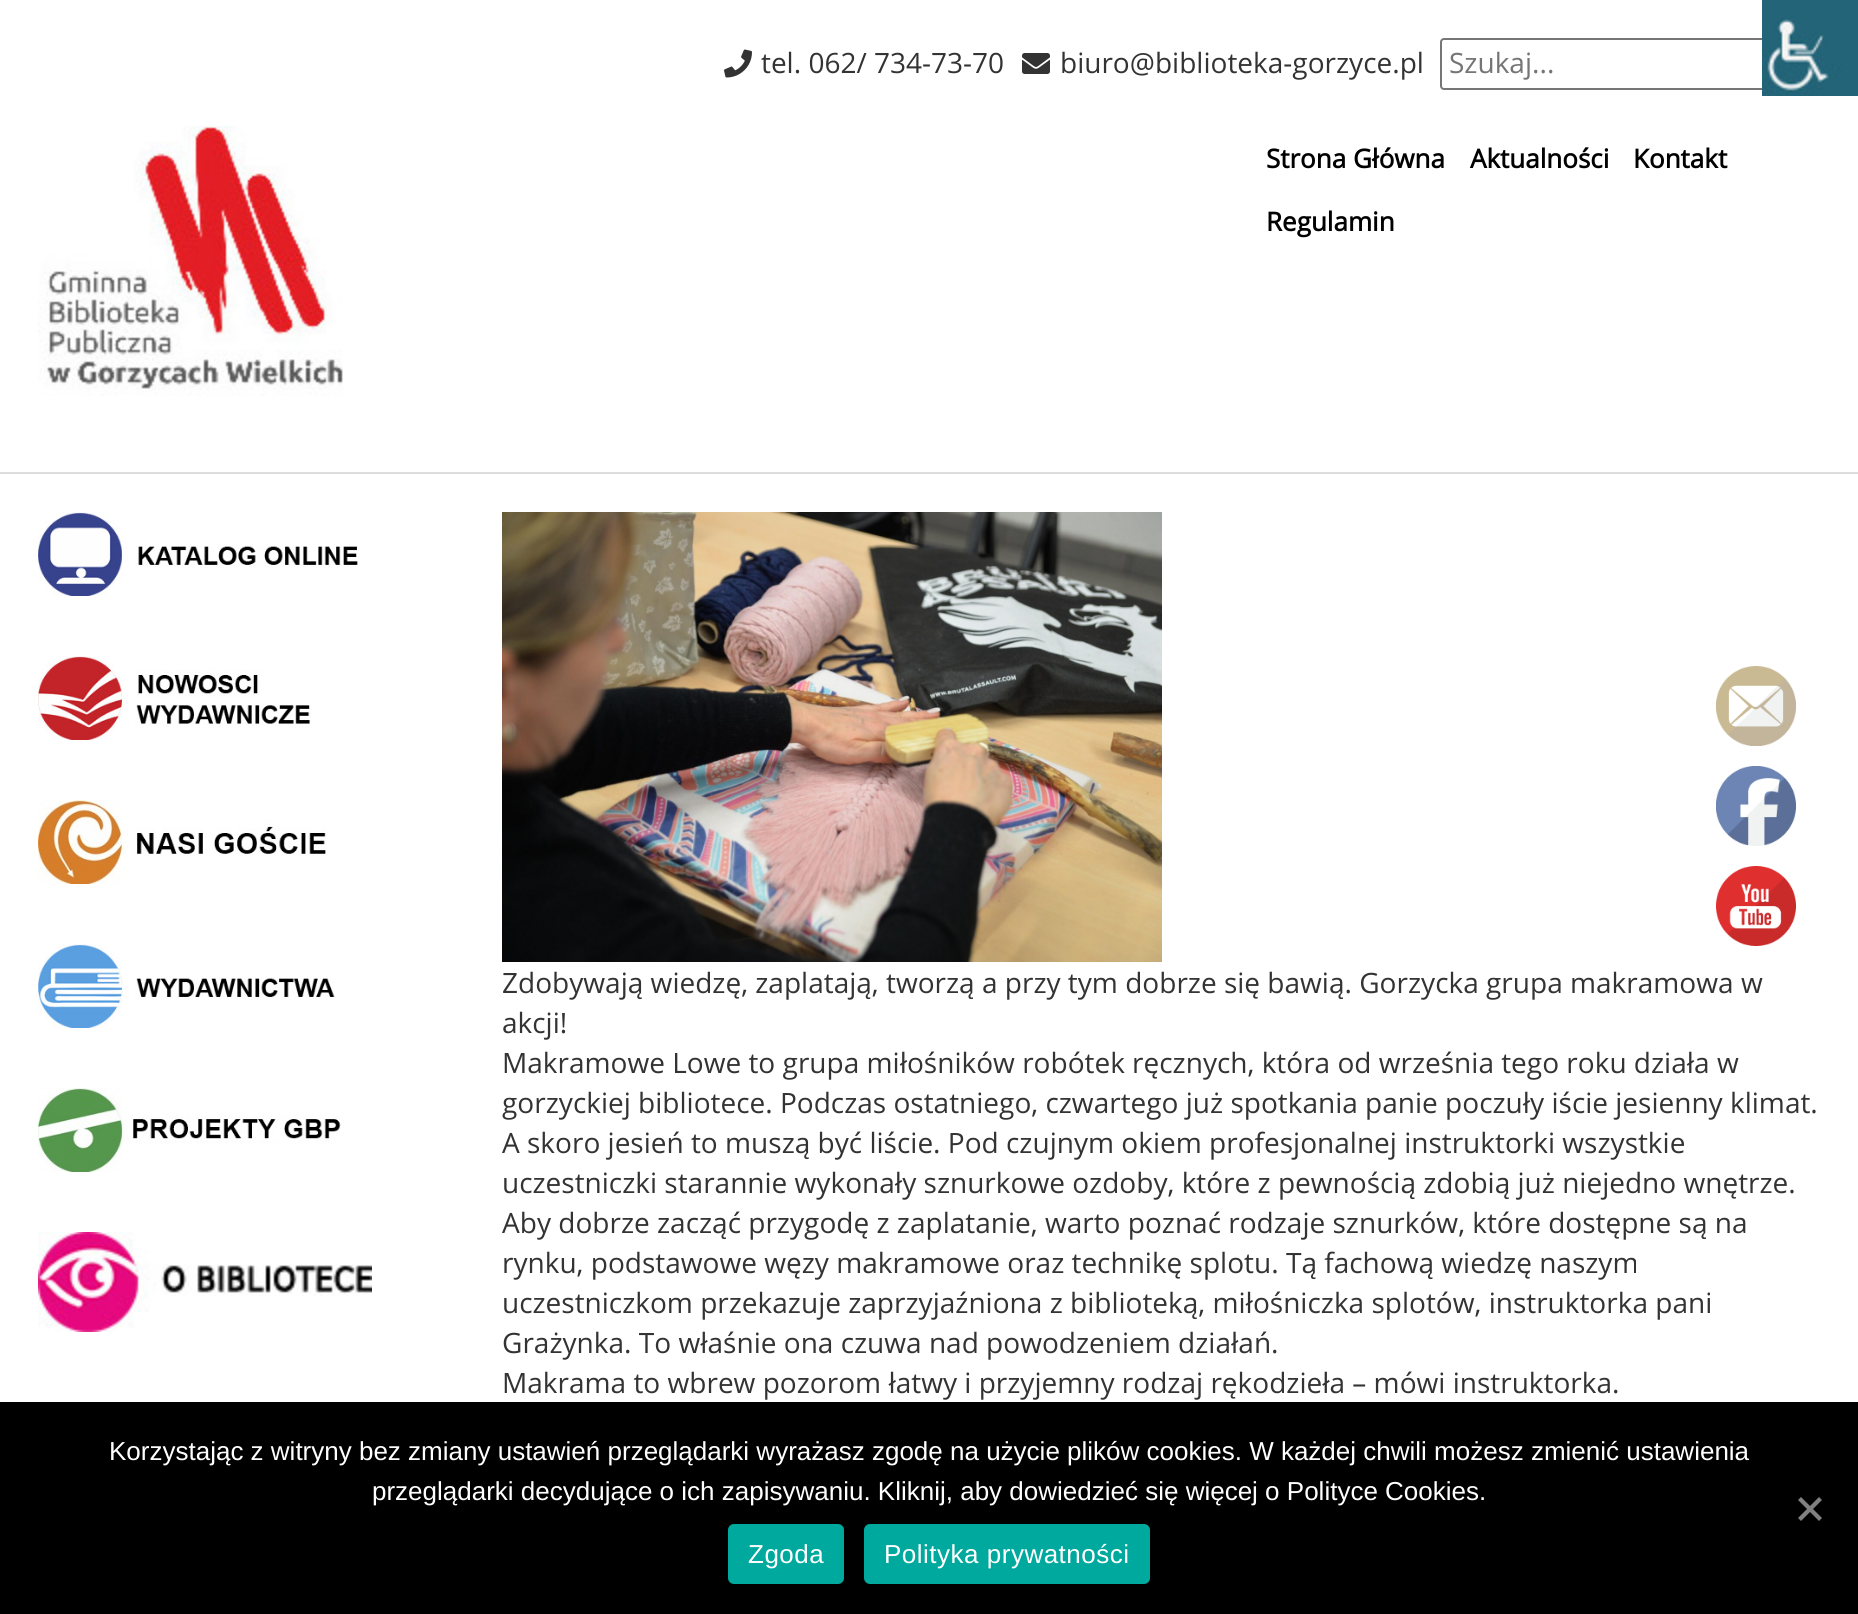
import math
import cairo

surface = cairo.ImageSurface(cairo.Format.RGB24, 1858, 1614)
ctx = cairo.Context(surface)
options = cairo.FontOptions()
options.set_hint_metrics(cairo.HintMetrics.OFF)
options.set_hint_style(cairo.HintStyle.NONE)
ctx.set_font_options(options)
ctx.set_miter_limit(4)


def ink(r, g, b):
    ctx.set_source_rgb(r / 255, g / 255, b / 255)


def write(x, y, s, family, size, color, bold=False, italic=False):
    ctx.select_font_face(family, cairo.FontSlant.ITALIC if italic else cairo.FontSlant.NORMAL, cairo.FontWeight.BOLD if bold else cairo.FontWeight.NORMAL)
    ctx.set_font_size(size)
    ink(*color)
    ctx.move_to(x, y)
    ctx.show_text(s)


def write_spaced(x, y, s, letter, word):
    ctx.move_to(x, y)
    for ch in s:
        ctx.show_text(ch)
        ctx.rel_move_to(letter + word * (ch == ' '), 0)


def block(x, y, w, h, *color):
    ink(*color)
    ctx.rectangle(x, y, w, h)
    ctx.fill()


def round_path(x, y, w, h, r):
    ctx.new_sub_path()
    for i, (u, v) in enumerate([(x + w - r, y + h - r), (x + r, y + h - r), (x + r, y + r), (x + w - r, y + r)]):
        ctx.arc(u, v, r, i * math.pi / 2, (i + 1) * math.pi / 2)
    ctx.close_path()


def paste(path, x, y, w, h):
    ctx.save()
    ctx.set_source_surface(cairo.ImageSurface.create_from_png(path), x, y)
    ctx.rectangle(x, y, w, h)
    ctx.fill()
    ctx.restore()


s1 = dict(family="Open Sans", size=28, color=(51, 51, 51))
s2 = dict(family="Open Sans", size=28, color=(117, 117, 117))
s3 = dict(family="Open Sans", size=26, color=(0, 0, 0), bold=True)
s4 = dict(family="Liberation Sans", size=26, color=(255, 255, 255))

ink(255, 255, 255)
ctx.paint()
block(0, 472, 1858, 2, 221, 221, 221)
paste("pic1.png", 724, 49, 28, 29)
write(761, 73, "tel. 062/ 734-73-70", **s1)
paste("pic2.png", 1022, 53, 28, 21)
write(1060, 73, "biuro@biblioteka-gorzyce.pl", **s1)
round_path(1441, 39, 378, 50, 3)
ink(118, 118, 118)
ctx.stroke()
write(1449, 73, "Szukaj...", **s2)
paste("pic3.png", 38, 126, 305, 270)
write(1266, 168, "Strona Główna", **s3)
write(1470, 168, "Aktualności", **s3)
write(1633, 168, "Kontakt", **s3)
write(1266, 231, "Regulamin", **s3)
paste("pic4.png", 1762, 0, 96, 96)
paste("pic5.png", 38, 512, 320, 84)
paste("pic6.png", 38, 656, 273, 84)
paste("pic7.png", 38, 800, 289, 84)
paste("pic8.png", 38, 944, 297, 84)
paste("pic9.png", 38, 1088, 303, 84)
paste("pic10.png", 38, 1232, 334, 100)
paste("pic11.png", 502, 512, 660, 450)
write(502, 993, "Zdobywają wiedzę, zaplatają, tworzą a przy tym dobrze się bawią. Gorzycka grupa makramowa w", **s1)
write(502, 1033, "akcji!", **s1)
write(502, 1073, "Makramowe Lowe to grupa miłośników robótek ręcznych, która od września tego roku działa w", **s1)
write(502, 1113, "gorzyckiej bibliotece. Podczas ostatniego, czwartego już spotkania panie poczuły iście jesienny klimat.", **s1)
write(502, 1153, "A skoro jesień to muszą być liście. Pod czujnym okiem profesjonalnej instruktorki wszystkie", **s1)
write(502, 1193, "uczestniczki starannie wykonały sznurkowe ozdoby, które z pewnością zdobią już niejedno wnętrze.", **s1)
write(502, 1233, "Aby dobrze zacząć przygodę z zaplatanie, warto poznać rodzaje sznurków, które dostępne są na", **s1)
write(502, 1273, "rynku, podstawowe węzy makramowe oraz technikę splotu. Tą fachową wiedzę naszym", **s1)
write(502, 1313, "uczestniczkom przekazuje zaprzyjaźniona z biblioteką, miłośniczka splotów, instruktorka pani", **s1)
write(502, 1353, "Grażynka. To właśnie ona czuwa nad powodzeniem działań.", **s1)
write(502, 1393, "Makrama to wbrew pozorom łatwy i przyjemny rodzaj rękodzieła – mówi instruktorka.", **s1)
paste("pic12.png", 1716, 666, 80, 80)
paste("pic13.png", 1716, 766, 80, 80)
paste("pic14.png", 1716, 866, 80, 80)
block(0, 1402, 1858, 212, 0, 0, 0)
write(109, 1460, "Korzystając z witryny bez zmiany ustawień przeglądarki wyrażasz zgodę na użycie plików cookies. W każdej chwili możesz zmienić ustawienia", **s4)
write(372, 1500, "przeglądarki decydujące o ich zapisywaniu. Kliknij, aby dowiedzieć się więcej o Polityce Cookies.", **s4)
ink(128, 128, 128)
ctx.new_path()
ctx.move_to(1819, 1497)
ctx.line_to(1822, 1500)
ctx.line_to(1801, 1521)
ctx.line_to(1798, 1518)
ctx.close_path()
ctx.fill()
ctx.new_path()
ctx.move_to(1798, 1500)
ctx.line_to(1801, 1497)
ctx.line_to(1822, 1518)
ctx.line_to(1819, 1521)
ctx.close_path()
ctx.fill()
ink(0, 169, 157)
round_path(728, 1524, 116, 60, 6)
ctx.fill()
ink(255, 255, 255)
write_spaced(748, 1563, "Zgoda", 0.5, 0)
ink(0, 169, 157)
round_path(864, 1524, 286, 60, 6)
ctx.fill()
ink(255, 255, 255)
write_spaced(884, 1563, "Polityka prywatności", 0.5, 0)
surface.write_to_png("screenshot.png")
